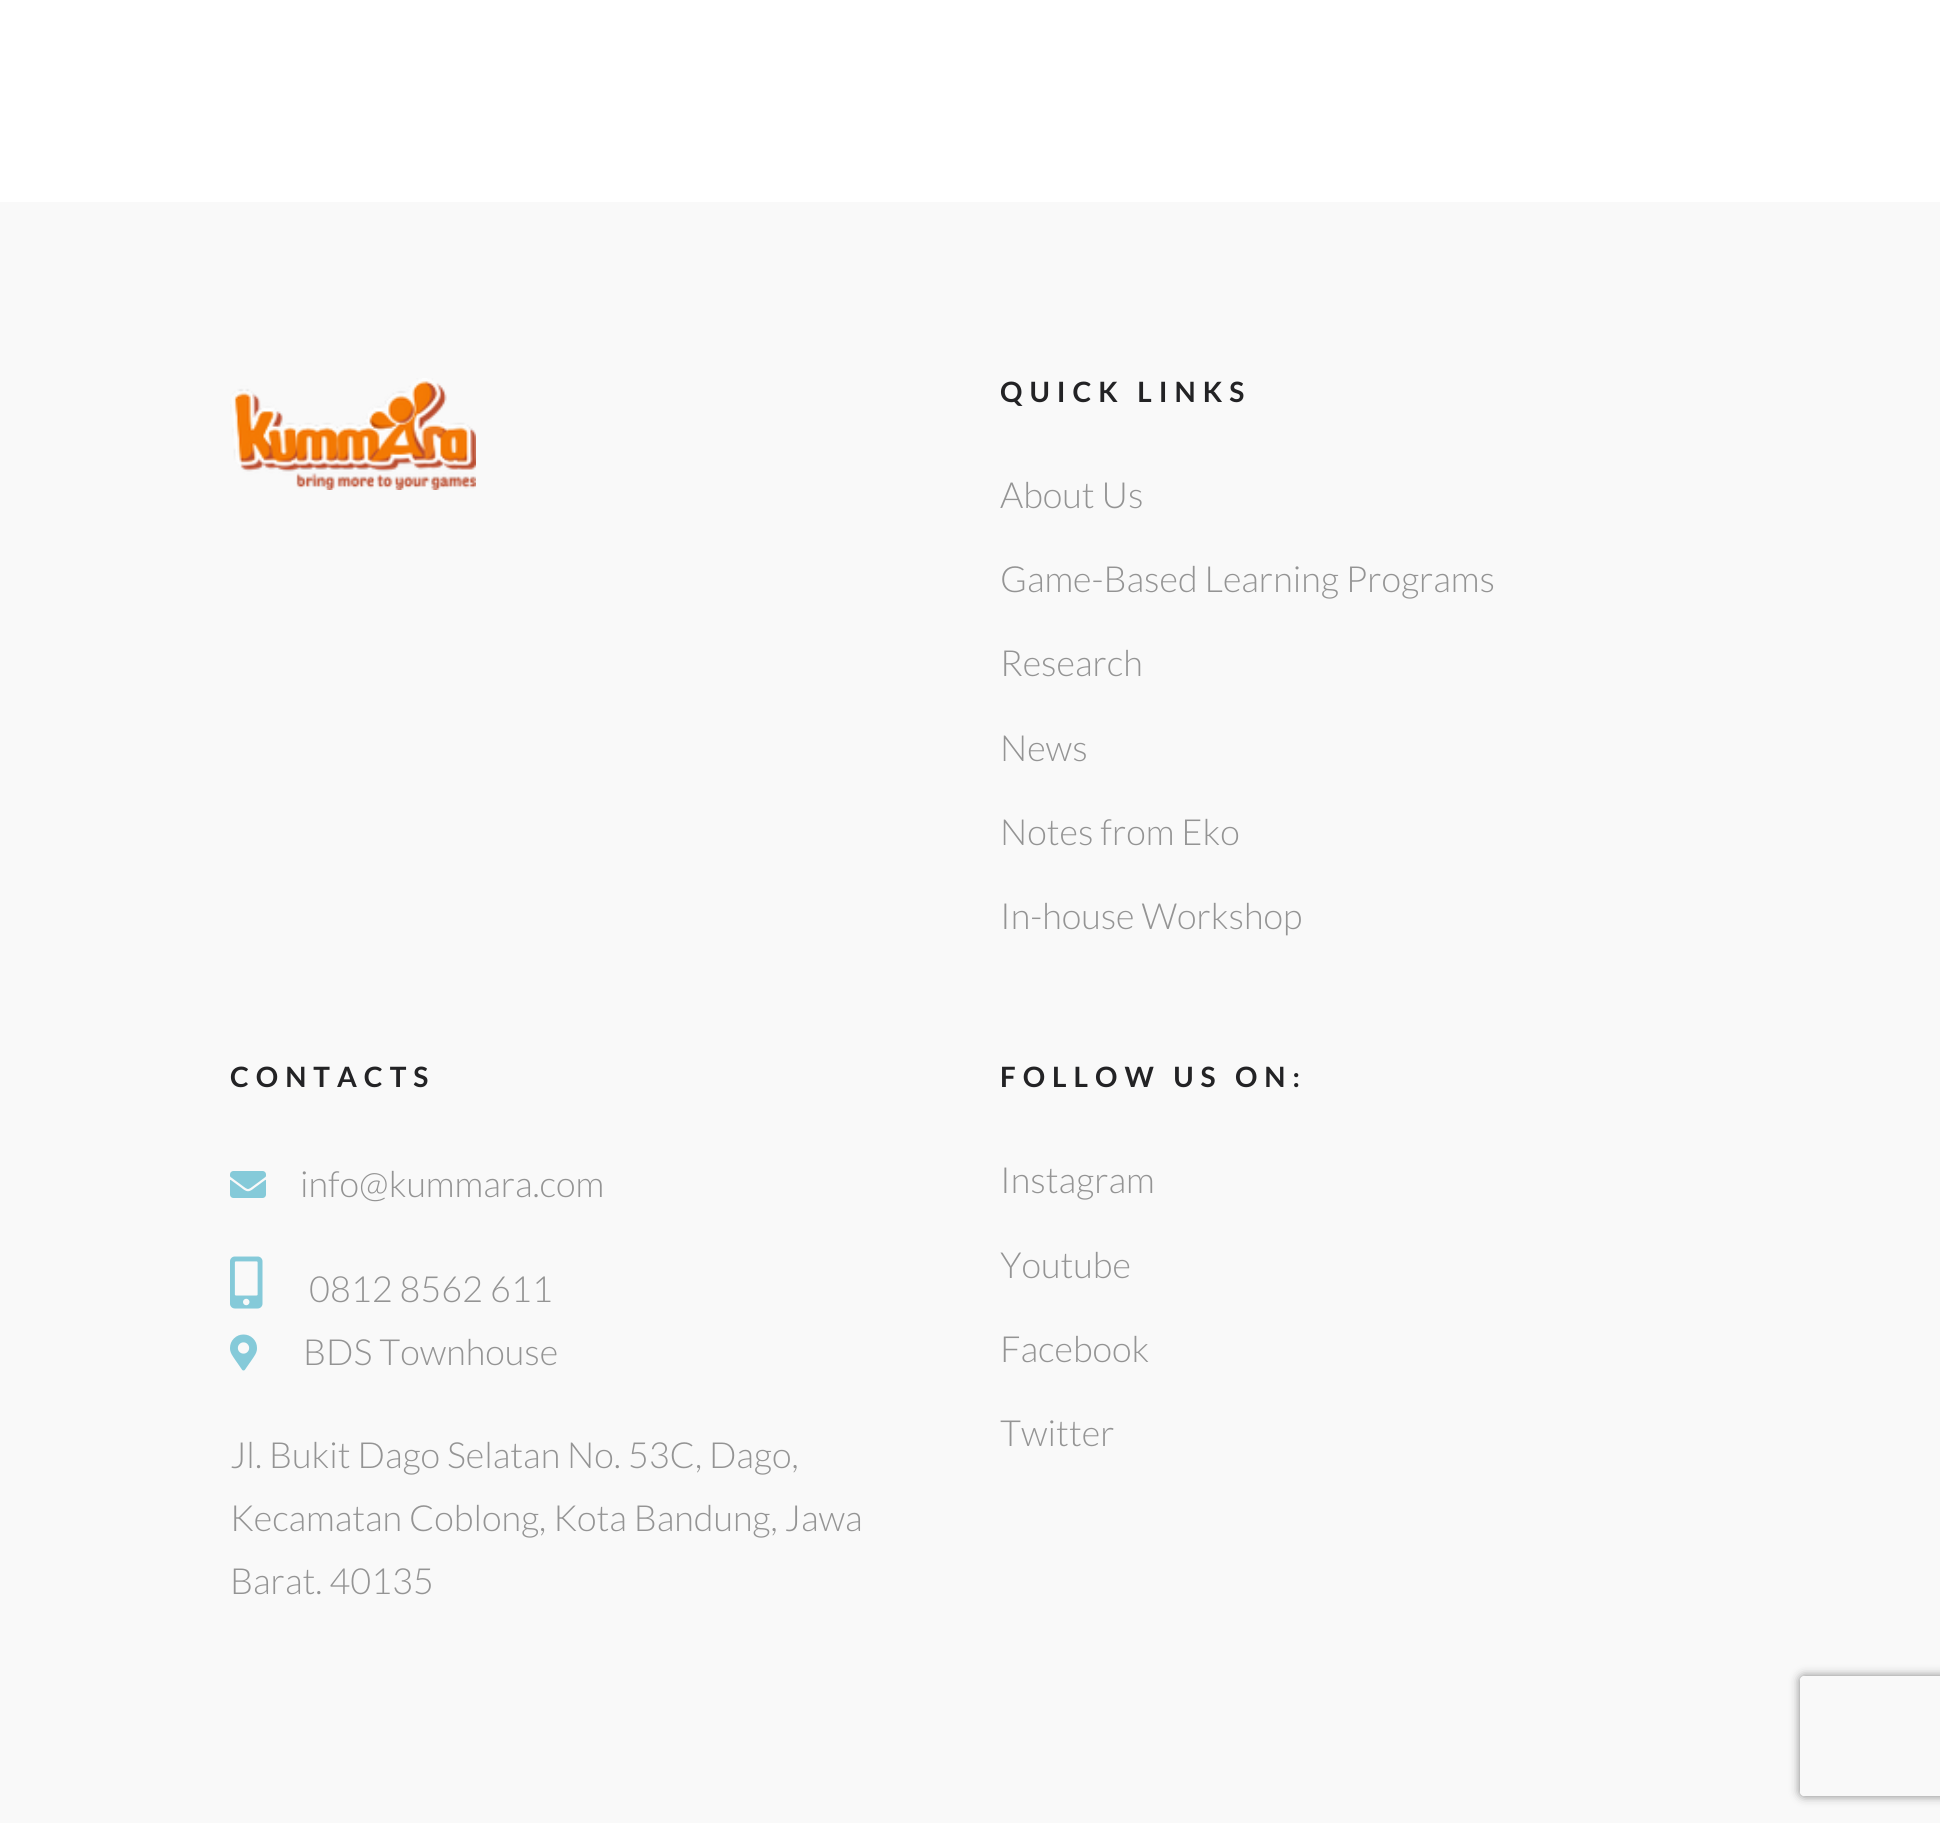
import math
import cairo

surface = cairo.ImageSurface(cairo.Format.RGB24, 1940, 1823)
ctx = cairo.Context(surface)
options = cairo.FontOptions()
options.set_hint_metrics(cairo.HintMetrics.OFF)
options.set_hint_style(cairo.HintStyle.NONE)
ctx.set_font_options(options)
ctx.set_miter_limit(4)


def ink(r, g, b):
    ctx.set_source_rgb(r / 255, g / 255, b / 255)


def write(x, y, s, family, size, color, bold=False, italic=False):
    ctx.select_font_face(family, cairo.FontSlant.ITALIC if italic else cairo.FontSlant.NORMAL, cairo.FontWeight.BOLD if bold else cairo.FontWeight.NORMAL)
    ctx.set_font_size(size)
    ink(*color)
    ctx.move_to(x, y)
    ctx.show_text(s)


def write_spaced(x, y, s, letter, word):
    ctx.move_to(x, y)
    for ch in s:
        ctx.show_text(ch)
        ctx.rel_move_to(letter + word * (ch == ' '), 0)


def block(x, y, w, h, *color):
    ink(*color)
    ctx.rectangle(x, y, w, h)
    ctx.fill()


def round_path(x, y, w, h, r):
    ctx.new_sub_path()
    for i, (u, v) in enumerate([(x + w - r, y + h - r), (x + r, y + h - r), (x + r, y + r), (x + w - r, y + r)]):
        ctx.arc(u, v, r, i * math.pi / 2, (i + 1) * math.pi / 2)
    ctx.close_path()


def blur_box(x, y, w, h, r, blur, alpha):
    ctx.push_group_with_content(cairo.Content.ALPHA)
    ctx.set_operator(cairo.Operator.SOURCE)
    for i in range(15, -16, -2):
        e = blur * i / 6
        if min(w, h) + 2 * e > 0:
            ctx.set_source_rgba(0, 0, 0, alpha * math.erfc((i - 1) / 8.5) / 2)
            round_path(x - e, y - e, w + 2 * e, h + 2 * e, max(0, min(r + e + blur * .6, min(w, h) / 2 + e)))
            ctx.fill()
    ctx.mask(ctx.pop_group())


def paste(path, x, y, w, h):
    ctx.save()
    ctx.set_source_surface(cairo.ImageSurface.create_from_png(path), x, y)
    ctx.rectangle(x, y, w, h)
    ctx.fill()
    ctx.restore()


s1 = dict(family="Lato Light", size=36, color=(148, 148, 148))

ink(255, 255, 255)
ctx.paint()
block(0, 202, 1940, 1621, 249, 249, 249)
paste("pic1.png", 230, 378, 246, 112)
ctx.select_font_face("Lato", cairo.FontSlant.NORMAL, cairo.FontWeight.BOLD)
ctx.set_font_size(28)
ink(35, 35, 37)
write_spaced(1000, 402, "QUICK LINKS", 7, 0)
write(1000, 508, "About Us", **s1)
write(1000, 592, "Game-Based Learning Programs", **s1)
write(1000, 676, "Research", **s1)
write(1000, 761, "News", **s1)
write(1000, 845, "Notes from Eko", **s1)
write(1000, 929, "In-house Workshop", **s1)
ctx.select_font_face("Lato", cairo.FontSlant.NORMAL, cairo.FontWeight.BOLD)
ctx.set_font_size(28)
ink(35, 35, 37)
write_spaced(230, 1087, "CONTACTS", 7, 0)
paste("pic2.png", 230, 1171, 36, 27)
write(300, 1197, "info@kummara.com", **s1)
paste("pic3.png", 230, 1256, 33, 53)
write(309, 1302, "0812 8562 611", **s1)
paste("pic4.png", 230, 1334, 27, 37)
write(303, 1365, "BDS Townhouse", **s1)
write(230, 1468, "Jl. Bukit Dago Selatan No. 53C, Dago,", **s1)
write(230, 1531, "Kecamatan Coblong, Kota Bandung, Jawa", **s1)
write(230, 1594, "Barat. 40135", **s1)
ctx.select_font_face("Lato", cairo.FontSlant.NORMAL, cairo.FontWeight.BOLD)
ctx.set_font_size(28)
ink(35, 35, 37)
write_spaced(1000, 1087, "FOLLOW US ON:", 7, 0)
write(1000, 1193, "Instagram", **s1)
write(1000, 1278, "Youtube", **s1)
write(1000, 1362, "Facebook", **s1)
write(1000, 1446, "Twitter", **s1)
ctx.save()
ctx.set_fill_rule(cairo.FillRule.EVEN_ODD)
ctx.new_path()
ctx.move_to(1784, 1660)
ctx.line_to(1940, 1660)
ctx.line_to(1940, 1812)
ctx.line_to(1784, 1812)
ctx.close_path()
ctx.move_to(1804, 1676)
ctx.line_to(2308, 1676)
ctx.curve_to(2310, 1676, 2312, 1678, 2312, 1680)
ctx.line_to(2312, 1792)
ctx.curve_to(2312, 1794, 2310, 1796, 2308, 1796)
ctx.line_to(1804, 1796)
ctx.curve_to(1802, 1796, 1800, 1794, 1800, 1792)
ctx.line_to(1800, 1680)
ctx.curve_to(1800, 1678, 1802, 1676, 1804, 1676)
ctx.close_path()
ctx.clip()
ink(128, 128, 128)
blur_box(1800, 1676, 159, 120, 4, 5, 1)
ctx.restore()
surface.write_to_png("screenshot.png")
